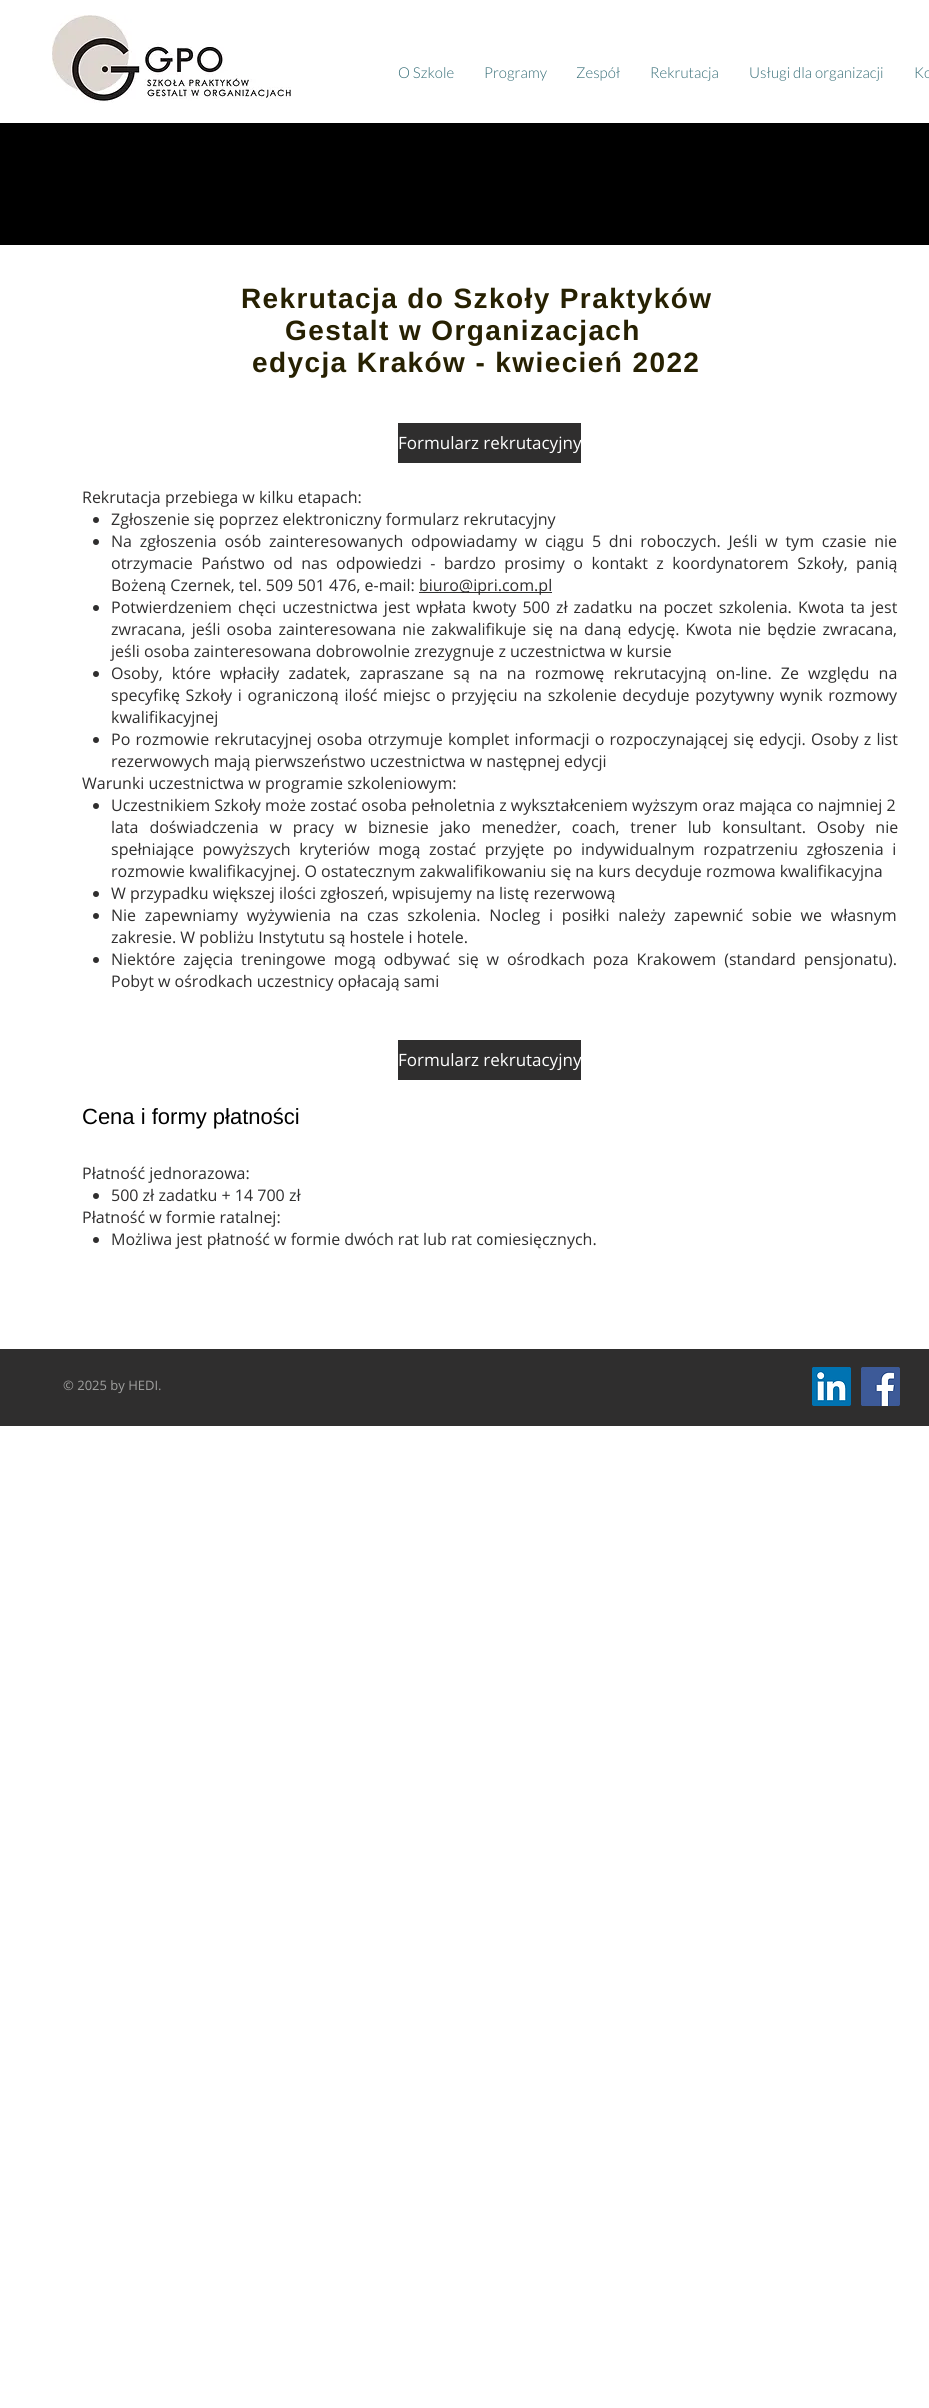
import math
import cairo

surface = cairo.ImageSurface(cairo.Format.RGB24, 929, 2408)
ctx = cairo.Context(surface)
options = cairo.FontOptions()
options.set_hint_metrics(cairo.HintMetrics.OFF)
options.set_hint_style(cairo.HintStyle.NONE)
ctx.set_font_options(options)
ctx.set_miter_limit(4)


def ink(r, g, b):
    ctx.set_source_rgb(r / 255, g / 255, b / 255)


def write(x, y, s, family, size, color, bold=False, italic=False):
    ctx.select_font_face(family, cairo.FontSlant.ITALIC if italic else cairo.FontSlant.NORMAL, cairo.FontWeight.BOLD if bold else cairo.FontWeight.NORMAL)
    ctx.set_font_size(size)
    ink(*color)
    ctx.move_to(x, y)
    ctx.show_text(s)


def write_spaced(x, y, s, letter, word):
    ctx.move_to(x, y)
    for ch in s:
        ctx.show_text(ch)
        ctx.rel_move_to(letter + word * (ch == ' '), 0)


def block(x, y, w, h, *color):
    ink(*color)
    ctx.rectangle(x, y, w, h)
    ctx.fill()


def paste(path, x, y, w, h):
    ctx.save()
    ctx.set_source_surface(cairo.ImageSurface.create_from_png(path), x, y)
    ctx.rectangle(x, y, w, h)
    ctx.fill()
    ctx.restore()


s1 = dict(family="Lato Light", size=15, color=(52, 108, 118))
s2 = dict(family="Open Sans", size=17, color=(255, 255, 255))
s3 = dict(family="Open Sans", size=16, color=(47, 46, 46))
s4 = dict(family="Liberation Sans", size=22, color=(0, 0, 0))
s5 = dict(family="Open Sans", size=13, color=(160, 160, 159))

ink(255, 255, 255)
ctx.paint()
paste("pic1.png", 52, 15, 239, 88)
write(398, 78, "O Szkole", **s1)
write(484, 78, "Programy", **s1)
write(576, 78, "Zespół", **s1)
write(650, 78, "Rekrutacja", **s1)
write(749, 78, "Usługi dla organizacji", **s1)
write(914, 78, "Ko", **s1)
block(0, 123, 929, 122, 0, 0, 0)
ctx.select_font_face("Liberation Sans", cairo.FontSlant.NORMAL, cairo.FontWeight.BOLD)
ctx.set_font_size(28)
ink(39, 33, 2)
write_spaced(241, 308, "Rekrutacja do Szkoły Praktyków", 1.4, 0)
write_spaced(285, 340, "Gestalt w Organizacjach", 1.4, 0)
write_spaced(252, 372, "edycja Kraków - kwiecień 2022", 1.4, 0)
block(398, 423, 183, 40, 47, 46, 46)
write(398, 449, "Formularz rekrutacyjny", **s2)
write(82, 503, "Rekrutacja przebiega w kilku etapach:", **s3)
ctx.new_path()
ctx.arc(96, 520, 3, 0, 2 * math.pi)
ctx.fill()
write(111, 525, "Zgłoszenie się poprzez elektroniczny formularz rekrutacyjny", **s3)
ctx.new_path()
ctx.arc(96, 542, 3, 0, 2 * math.pi)
ctx.fill()
write_spaced(111, 547, "Na zgłoszenia osób zainteresowanych odpowiadamy w ciągu 5 dni roboczych. Jeśli w tym czasie nie", 0, 3.6)
write_spaced(111, 569, "otrzymacie Państwo od nas odpowiedzi - bardzo prosimy o kontakt z koordynatorem Szkoły, panią", 0, 4.25)
write(111, 591, "Bożeną Czernek, tel. 509 501 476, e-mail:", **s3)
block(419, 592, 133, 1, 47, 46, 46)
write(419, 591, "biuro@ipri.com.pl", **s3)
ctx.new_path()
ctx.arc(96, 608, 3, 0, 2 * math.pi)
ctx.fill()
write_spaced(111, 613, "Potwierdzeniem chęci uczestnictwa jest wpłata kwoty 500 zł zadatku na poczet szkolenia. Kwota ta jest", 0, 1.9)
write_spaced(111, 635, "zwracana, jeśli osoba zainteresowana nie zakwalifikuje się na daną edycję. Kwota nie będzie zwracana,", 0, 2)
write(111, 657, "jeśli osoba zainteresowana dobrowolnie zrezygnuje z uczestnictwa w kursie", **s3)
ctx.new_path()
ctx.arc(96, 674, 3, 0, 2 * math.pi)
ctx.fill()
write_spaced(111, 679, "Osoby, które wpłaciły zadatek, zapraszane są na na rozmowę rekrutacyjną on-line. Ze względu na", 0, 5)
write_spaced(111, 701, "specyfikę Szkoły i ograniczoną ilość miejsc o przyjęciu na szkolenie decyduje pozytywny wynik rozmowy", 0, 1.5)
write(111, 723, "kwalifikacyjnej", **s3)
ctx.new_path()
ctx.arc(96, 740, 3, 0, 2 * math.pi)
ctx.fill()
write_spaced(111, 745, "Po rozmowie rekrutacyjnej osoba otrzymuje komplet informacji o rozpoczynającej się edycji. Osoby z list", 0, 1)
write(111, 767, "rezerwowych mają pierwszeństwo uczestnictwa w następnej edycji", **s3)
write(82, 789, "Warunki uczestnictwa w programie szkoleniowym:", **s3)
ctx.new_path()
ctx.arc(96, 806, 3, 0, 2 * math.pi)
ctx.fill()
write(111, 811, "Uczestnikiem Szkoły może zostać osoba pełnoletnia z wykształceniem wyższym oraz mająca co najmniej 2", **s3)
write_spaced(111, 833, "lata doświadczenia w pracy w biznesie jako menedżer, coach, trener lub konsultant. Osoby nie", 0, 6.75)
write_spaced(111, 855, "spełniające powyższych kryteriów mogą zostać przyjęte po indywidualnym rozpatrzeniu zgłoszenia i", 0, 4.5)
write(111, 877, "rozmowie kwalifikacyjnej. O ostatecznym zakwalifikowaniu się na kurs decyduje rozmowa kwalifikacyjna", **s3)
ctx.new_path()
ctx.arc(96, 894, 3, 0, 2 * math.pi)
ctx.fill()
write(111, 899, "W przypadku większej ilości zgłoszeń, wpisujemy na listę rezerwową", **s3)
ctx.new_path()
ctx.arc(96, 916, 3, 0, 2 * math.pi)
ctx.fill()
write_spaced(111, 921, "Nie zapewniamy wyżywienia na czas szkolenia. Nocleg i posiłki należy zapewnić sobie we własnym", 0, 4.5)
write(111, 943, "zakresie. W pobliżu Instytutu są hostele i hotele.", **s3)
ctx.new_path()
ctx.arc(96, 960, 3, 0, 2 * math.pi)
ctx.fill()
write_spaced(111, 965, "Niektóre zajęcia treningowe mogą odbywać się w ośrodkach poza Krakowem (standard pensjonatu).", 0, 3.75)
write(111, 987, "Pobyt w ośrodkach uczestnicy opłacają sami", **s3)
block(398, 1040, 183, 40, 47, 46, 46)
write(398, 1066, "Formularz rekrutacyjny", **s2)
write(82, 1124, "Cena i formy płatności", **s4)
write(82, 1179, "Płatność jednorazowa:", **s3)
ctx.new_path()
ctx.arc(96, 1196, 3, 0, 2 * math.pi)
ctx.fill()
write(111, 1201, "500 zł zadatku + 14 700 zł", **s3)
write(82, 1223, "Płatność w formie ratalnej:", **s3)
ctx.new_path()
ctx.arc(96, 1240, 3, 0, 2 * math.pi)
ctx.fill()
write(111, 1245, "Możliwa jest płatność w formie dwóch rat lub rat comiesięcznych.", **s3)
block(0, 1349, 929, 77, 47, 46, 46)
write(63, 1390, "© 2025 by HEDI.", **s5)
paste("pic2.png", 812, 1367, 39, 39)
paste("pic3.png", 861, 1367, 39, 39)
surface.write_to_png("screenshot.png")
